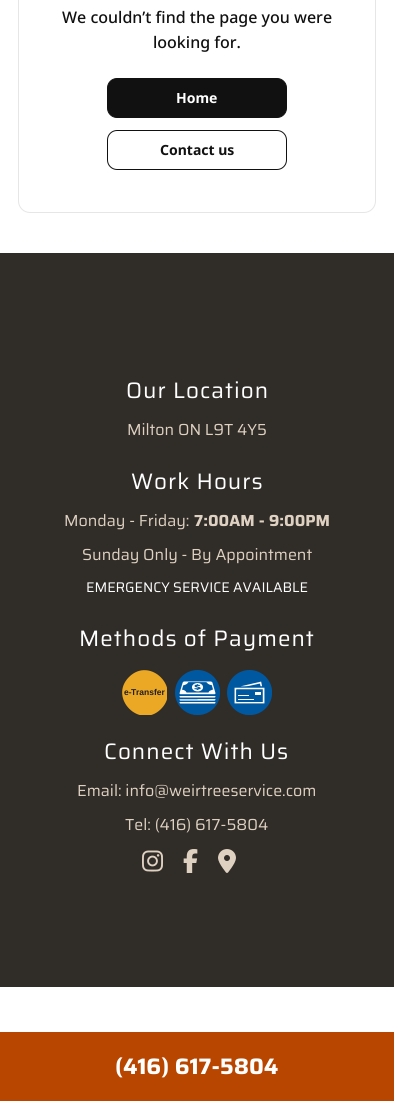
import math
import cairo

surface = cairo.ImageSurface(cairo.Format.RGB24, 394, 1101)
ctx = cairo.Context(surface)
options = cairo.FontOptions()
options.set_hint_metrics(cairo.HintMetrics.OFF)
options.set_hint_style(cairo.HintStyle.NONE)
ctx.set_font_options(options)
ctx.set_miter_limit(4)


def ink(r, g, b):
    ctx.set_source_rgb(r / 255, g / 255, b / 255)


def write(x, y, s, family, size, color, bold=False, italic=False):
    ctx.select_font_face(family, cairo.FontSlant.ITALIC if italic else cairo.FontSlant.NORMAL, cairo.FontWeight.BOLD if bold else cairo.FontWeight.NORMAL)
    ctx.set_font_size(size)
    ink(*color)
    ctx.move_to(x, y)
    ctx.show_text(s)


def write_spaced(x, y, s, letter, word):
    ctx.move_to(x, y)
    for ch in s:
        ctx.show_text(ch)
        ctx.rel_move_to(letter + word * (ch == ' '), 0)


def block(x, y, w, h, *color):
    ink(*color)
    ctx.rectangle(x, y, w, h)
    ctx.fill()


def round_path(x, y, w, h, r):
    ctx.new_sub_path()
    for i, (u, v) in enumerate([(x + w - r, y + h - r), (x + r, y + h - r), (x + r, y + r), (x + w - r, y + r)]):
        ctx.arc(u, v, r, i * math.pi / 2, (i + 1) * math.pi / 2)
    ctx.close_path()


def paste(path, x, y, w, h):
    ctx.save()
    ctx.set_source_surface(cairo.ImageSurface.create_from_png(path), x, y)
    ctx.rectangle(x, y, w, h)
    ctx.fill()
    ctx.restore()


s1 = dict(family="Noto Sans Medium", size=16, color=(17, 17, 17))
s2 = dict(family="Noto Sans", size=14, color=(255, 255, 255), bold=True)
s3 = dict(family="Noto Sans", size=14, color=(17, 17, 17), bold=True)
s4 = dict(family="Saira", size=16, color=(222, 209, 193))
s5 = dict(family="Saira", size=16, color=(222, 209, 193), bold=True)
s6 = dict(family="Saira", size=14, color=(255, 255, 255))
s7 = dict(family="Liberation Sans", size=8.5, color=(35, 31, 32), bold=True)
s8 = dict(family="Saira", size=22.4, color=(255, 255, 255), bold=True)

ink(255, 255, 255)
ctx.paint()
round_path(18.5, -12.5, 357, 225, 11.5)
ink(230, 230, 230)
ctx.set_line_width(1)
ctx.stroke()
write(62, 23, "We couldn’t find the page you were", **s1)
write(153, 48, "looking for.", **s1)
round_path(107.5, 78.5, 179, 39, 9.5)
ctx.fill_preserve()
ctx.stroke()
write(176, 103, "Home", **s2)
round_path(107.5, 130.5, 179, 39, 9.5)
ink(17, 17, 17)
ctx.stroke()
write(160, 155, "Contact us", **s3)
block(0, 253, 394, 734, 48, 44, 40)
ctx.select_font_face("Saira")
ctx.set_font_size(22.4)
ink(255, 255, 255)
write_spaced(126, 398, "Our Location", 1, 0)
write(127, 435, "Milton ON L9T 4Y5", **s4)
ctx.set_font_size(22.4)
ink(255, 255, 255)
write_spaced(131, 489, "Work Hours", 1, 0)
write(64, 526, "Monday - Friday:", **s4)
write(194, 526, "7:00AM - 9:00PM", **s5)
write(82, 560, "Sunday Only - By Appointment", **s4)
write(86, 592, "EMERGENCY SERVICE AVAILABLE", **s6)
ctx.set_font_size(22.4)
write_spaced(79, 646, "Methods of Payment", 1, 0)
ctx.save()
ctx.rectangle(122, 670, 45, 45)
ctx.clip()
ink(234, 168, 37)
ctx.new_path()
ctx.move_to(129, 677)
ctx.curve_to(150, 656, 182, 688, 161, 709)
ctx.curve_to(140, 730, 108, 698, 129, 677)
ctx.close_path()
ctx.fill()
ctx.restore()
write(124, 695, "e-", **s7)
write_spaced(131, 695, "T", -1, 0)
write(136, 695, "ransfer", **s7)
paste("pic1.png", 175, 670, 45, 45)
paste("pic2.png", 227, 670, 45, 45)
ctx.select_font_face("Saira")
ctx.set_font_size(22.4)
ink(255, 255, 255)
write_spaced(104, 759, "Connect With Us", 1, 0)
write(77, 796, "Email: info@weirtreeservice.com", **s4)
write(125, 830, "Tel: (416) 617-5804", **s4)
paste("pic3.png", 142, 850, 21, 22)
paste("pic4.png", 183, 849, 15, 24)
paste("pic5.png", 218, 849, 18, 24)
block(0, 1032, 394, 69, 185, 70, 0)
write(115, 1074, "(416) 617-5804", **s8)
surface.write_to_png("screenshot.png")
